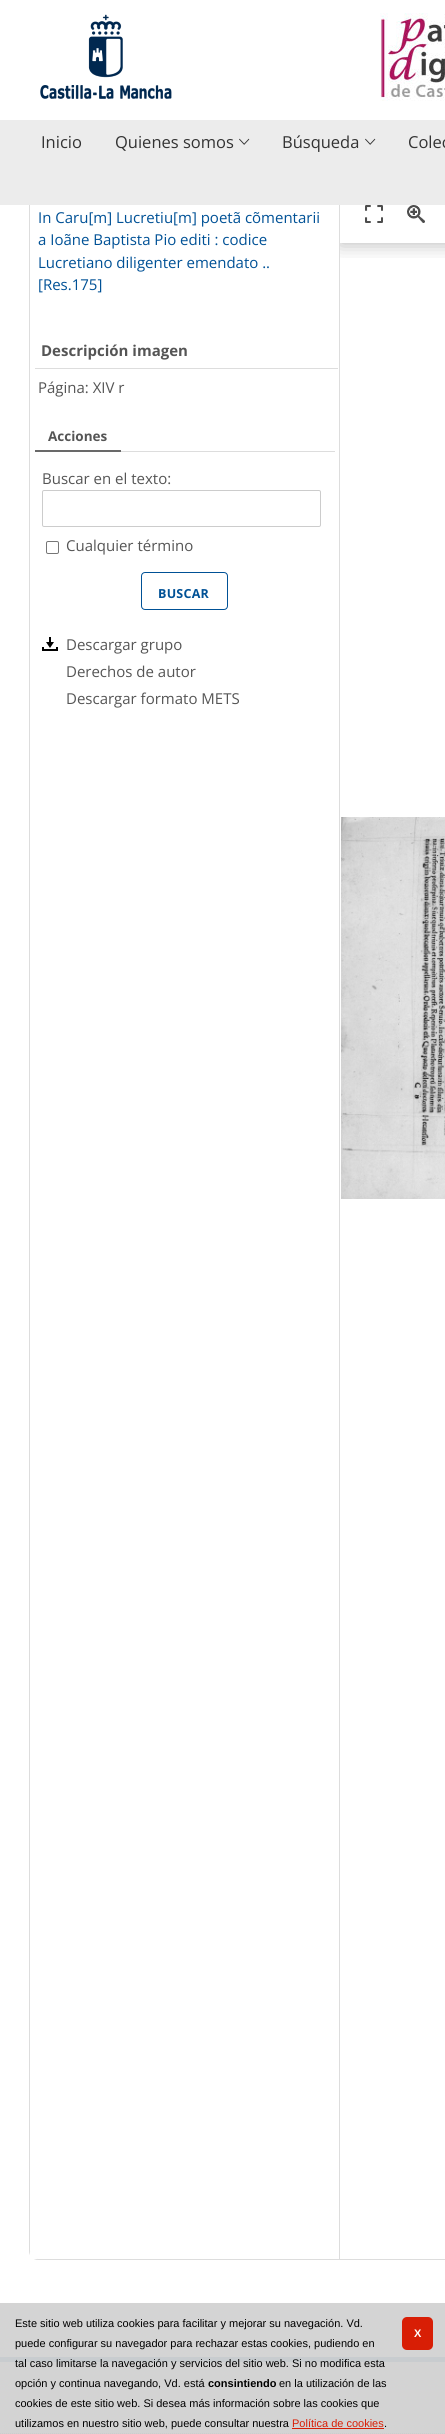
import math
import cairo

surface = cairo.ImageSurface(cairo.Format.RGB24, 445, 2434)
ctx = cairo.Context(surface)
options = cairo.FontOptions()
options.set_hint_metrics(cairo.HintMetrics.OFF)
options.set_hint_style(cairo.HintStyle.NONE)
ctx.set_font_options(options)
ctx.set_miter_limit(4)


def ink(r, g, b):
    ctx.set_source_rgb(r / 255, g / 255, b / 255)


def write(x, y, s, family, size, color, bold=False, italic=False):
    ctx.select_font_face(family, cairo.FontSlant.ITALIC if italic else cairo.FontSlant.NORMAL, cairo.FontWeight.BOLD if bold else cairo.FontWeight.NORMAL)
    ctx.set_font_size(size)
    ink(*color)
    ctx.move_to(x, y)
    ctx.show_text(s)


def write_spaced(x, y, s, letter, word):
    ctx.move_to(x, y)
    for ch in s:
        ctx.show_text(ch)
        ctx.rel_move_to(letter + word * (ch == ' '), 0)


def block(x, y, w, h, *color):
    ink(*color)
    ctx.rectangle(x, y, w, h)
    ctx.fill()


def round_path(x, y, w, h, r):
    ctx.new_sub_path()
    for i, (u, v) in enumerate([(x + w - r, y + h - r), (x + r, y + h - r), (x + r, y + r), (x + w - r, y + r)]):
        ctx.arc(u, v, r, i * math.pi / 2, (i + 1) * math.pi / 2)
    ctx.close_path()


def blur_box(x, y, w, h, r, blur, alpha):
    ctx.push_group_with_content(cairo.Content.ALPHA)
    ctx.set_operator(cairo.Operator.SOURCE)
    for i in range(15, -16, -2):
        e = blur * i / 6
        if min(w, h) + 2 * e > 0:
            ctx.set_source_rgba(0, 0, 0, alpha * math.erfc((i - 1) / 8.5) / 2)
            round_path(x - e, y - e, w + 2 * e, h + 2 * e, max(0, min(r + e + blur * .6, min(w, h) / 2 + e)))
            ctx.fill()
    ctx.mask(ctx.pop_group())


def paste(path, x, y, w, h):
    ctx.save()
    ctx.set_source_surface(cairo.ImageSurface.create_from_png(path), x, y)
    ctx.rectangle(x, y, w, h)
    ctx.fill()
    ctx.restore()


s1 = dict(family="Open Sans", size=16.5, color=(51, 51, 51))
s2 = dict(family="Open Sans", size=15, color=(0, 81, 150))
s3 = dict(family="Open Sans", size=15, color=(85, 85, 85), bold=True)
s4 = dict(family="Open Sans", size=15, color=(85, 85, 85))
s5 = dict(family="Open Sans", size=13.5, color=(85, 85, 85), bold=True)
s6 = dict(family="Liberation Sans", size=11, color=(0, 0, 0))
s7 = dict(family="Liberation Sans", size=11, color=(0, 0, 0), bold=True)
s8 = dict(family="Liberation Sans", size=11, color=(216, 30, 5))

ink(255, 255, 255)
ctx.paint()
block(0, 2303, 445, 54, 212, 212, 212)
paste("pic1.png", 380, 13, 65, 88)
paste("pic2.png", 40, 14, 132, 85)
round_path(29.5, 145.5, 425, 2114, 8.5)
ink(221, 221, 221)
ctx.set_line_width(1)
ctx.stroke()
block(339, 205, 1, 2054, 221, 221, 221)
ctx.save()
ctx.rectangle(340, 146, 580, 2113)
ctx.clip()
ctx.rectangle(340, 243, 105, 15)
ctx.clip()
ink(0, 0, 0)
blur_box(340, 146, 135, 97, 0, 10, 0.3)
ctx.restore()
block(0, 120, 445, 85, 236, 236, 236)
write(41, 148, "Inicio", **s1)
write(115, 148, "Quienes somos", **s1)
paste("pic3.png", 239, 138, 11, 7)
write(282, 148, "Búsqueda", **s1)
paste("pic3.png", 365, 138, 11, 7)
write(408, 148, "Colec", **s1)
block(30, 2252, 7, 7, 255, 255, 255)
write(38, 223, "In Caru[m] Lucretiu[m] poetã cõmentarii", **s2)
write(38, 245, "a Ioãne Baptista Pio editi : codice", **s2)
write(38, 268, "Lucretiano diligenter emendato ..", **s2)
write(38, 290, "[Res.175]", **s2)
block(35, 368, 303, 1, 221, 221, 221)
write(41, 356, "Descripción imagen", **s3)
write(38, 393, "Página: XIV r", **s4)
block(121, 451, 214, 1, 221, 221, 221)
block(35, 450, 86, 2, 105, 105, 105)
write(48, 441, "Acciones", **s5)
write(42, 484, "Buscar en el texto:", **s4)
round_path(42.5, 490.5, 278, 36, 1.5)
ink(204, 204, 204)
ctx.stroke()
round_path(46.5, 541.5, 12, 12, 1.5)
ink(118, 118, 118)
ctx.stroke()
write(66, 551, "Cualquier término", **s4)
round_path(141.5, 572.5, 86, 37, 3.5)
ink(0, 81, 150)
ctx.stroke()
ctx.select_font_face("Open Sans", cairo.FontSlant.NORMAL, cairo.FontWeight.BOLD)
ctx.set_font_size(12.5)
write_spaced(158, 598, "BUSCAR", 0.25, 0)
paste("pic4.png", 42, 637, 16, 14)
write(66, 650, "Descargar grupo", **s4)
write(66, 677, "Derechos de autor", **s4)
write(66, 704, "Descargar formato METS", **s4)
paste("pic5.png", 365, 205, 18, 18)
paste("pic6.png", 407, 205, 18, 18)
paste("pic7.png", 341, 817, 104, 382)
block(0, 2362, 445, 72, 211, 211, 211)
block(0, 2357, 445, 5, 200, 204, 207)
ctx.new_path()
ctx.move_to(0, 2433.5)
ctx.line_to(445, 2433.5)
ink(204, 204, 204)
ctx.set_dash([1, 1])
ctx.stroke()
write(15, 2327, "Este sitio web utiliza cookies para facilitar y mejorar su navegación. Vd.", **s6)
write(15, 2347, "puede configurar su navegador para rechazar estas cookies, pudiendo en", **s6)
write(15, 2367, "tal caso limitarse la navegación y servicios del sitio web. Si no modifica esta", **s6)
write(15, 2387, "opción y continua navegando, Vd. está", **s6)
write(208, 2387, "consintiendo", **s7)
write(279, 2387, "en la utilización de las", **s6)
write(15, 2407, "cookies de este sitio web. Si desea más información sobre las cookies que", **s6)
write(15, 2427, "utilizamos en nuestro sitio web, puede consultar nuestra", **s6)
write(292, 2427, "Política de cookies", **s8)
write(384, 2427, ".", **s6)
block(292, 2428, 92, 1, 216, 30, 5)
round_path(402, 2317, 31, 33, 5)
ctx.fill()
ctx.select_font_face("Liberation Sans", cairo.FontSlant.NORMAL, cairo.FontWeight.BOLD)
ink(255, 255, 255)
write_spaced(414, 2337, "X", -1, 0)
surface.write_to_png("screenshot.png")
